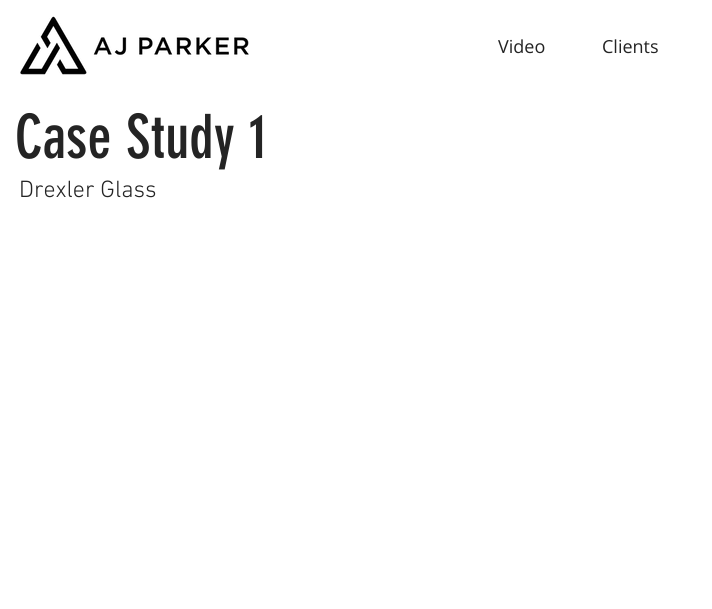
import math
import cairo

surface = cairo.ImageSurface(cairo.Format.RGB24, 712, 609)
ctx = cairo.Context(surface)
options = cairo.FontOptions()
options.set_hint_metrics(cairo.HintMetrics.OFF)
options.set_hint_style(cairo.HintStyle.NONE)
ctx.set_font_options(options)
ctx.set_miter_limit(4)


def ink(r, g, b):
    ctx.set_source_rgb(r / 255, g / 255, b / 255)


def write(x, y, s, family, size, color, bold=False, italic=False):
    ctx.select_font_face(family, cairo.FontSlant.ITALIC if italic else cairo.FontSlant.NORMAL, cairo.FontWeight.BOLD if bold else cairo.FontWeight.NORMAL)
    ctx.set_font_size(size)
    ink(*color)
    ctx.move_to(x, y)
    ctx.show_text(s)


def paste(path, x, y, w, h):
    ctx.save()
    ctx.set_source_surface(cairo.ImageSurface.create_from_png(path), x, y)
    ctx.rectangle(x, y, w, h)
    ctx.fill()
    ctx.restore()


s1 = dict(family="Open Sans", size=18, color=(36, 36, 36))
s2 = dict(family="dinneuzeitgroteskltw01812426", size=60, color=(36, 36, 36))
s3 = dict(family="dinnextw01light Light", size=24, color=(36, 36, 36))

ink(255, 255, 255)
ctx.paint()
paste("pic1.png", 20, 16, 229, 59)
write(498, 53, "Video", **s1)
write(602, 53, "Clients", **s1)
write(15, 158, "Case Study 1", **s2)
write(19, 197, "Drexler Glass", **s3)
surface.write_to_png("screenshot.png")
